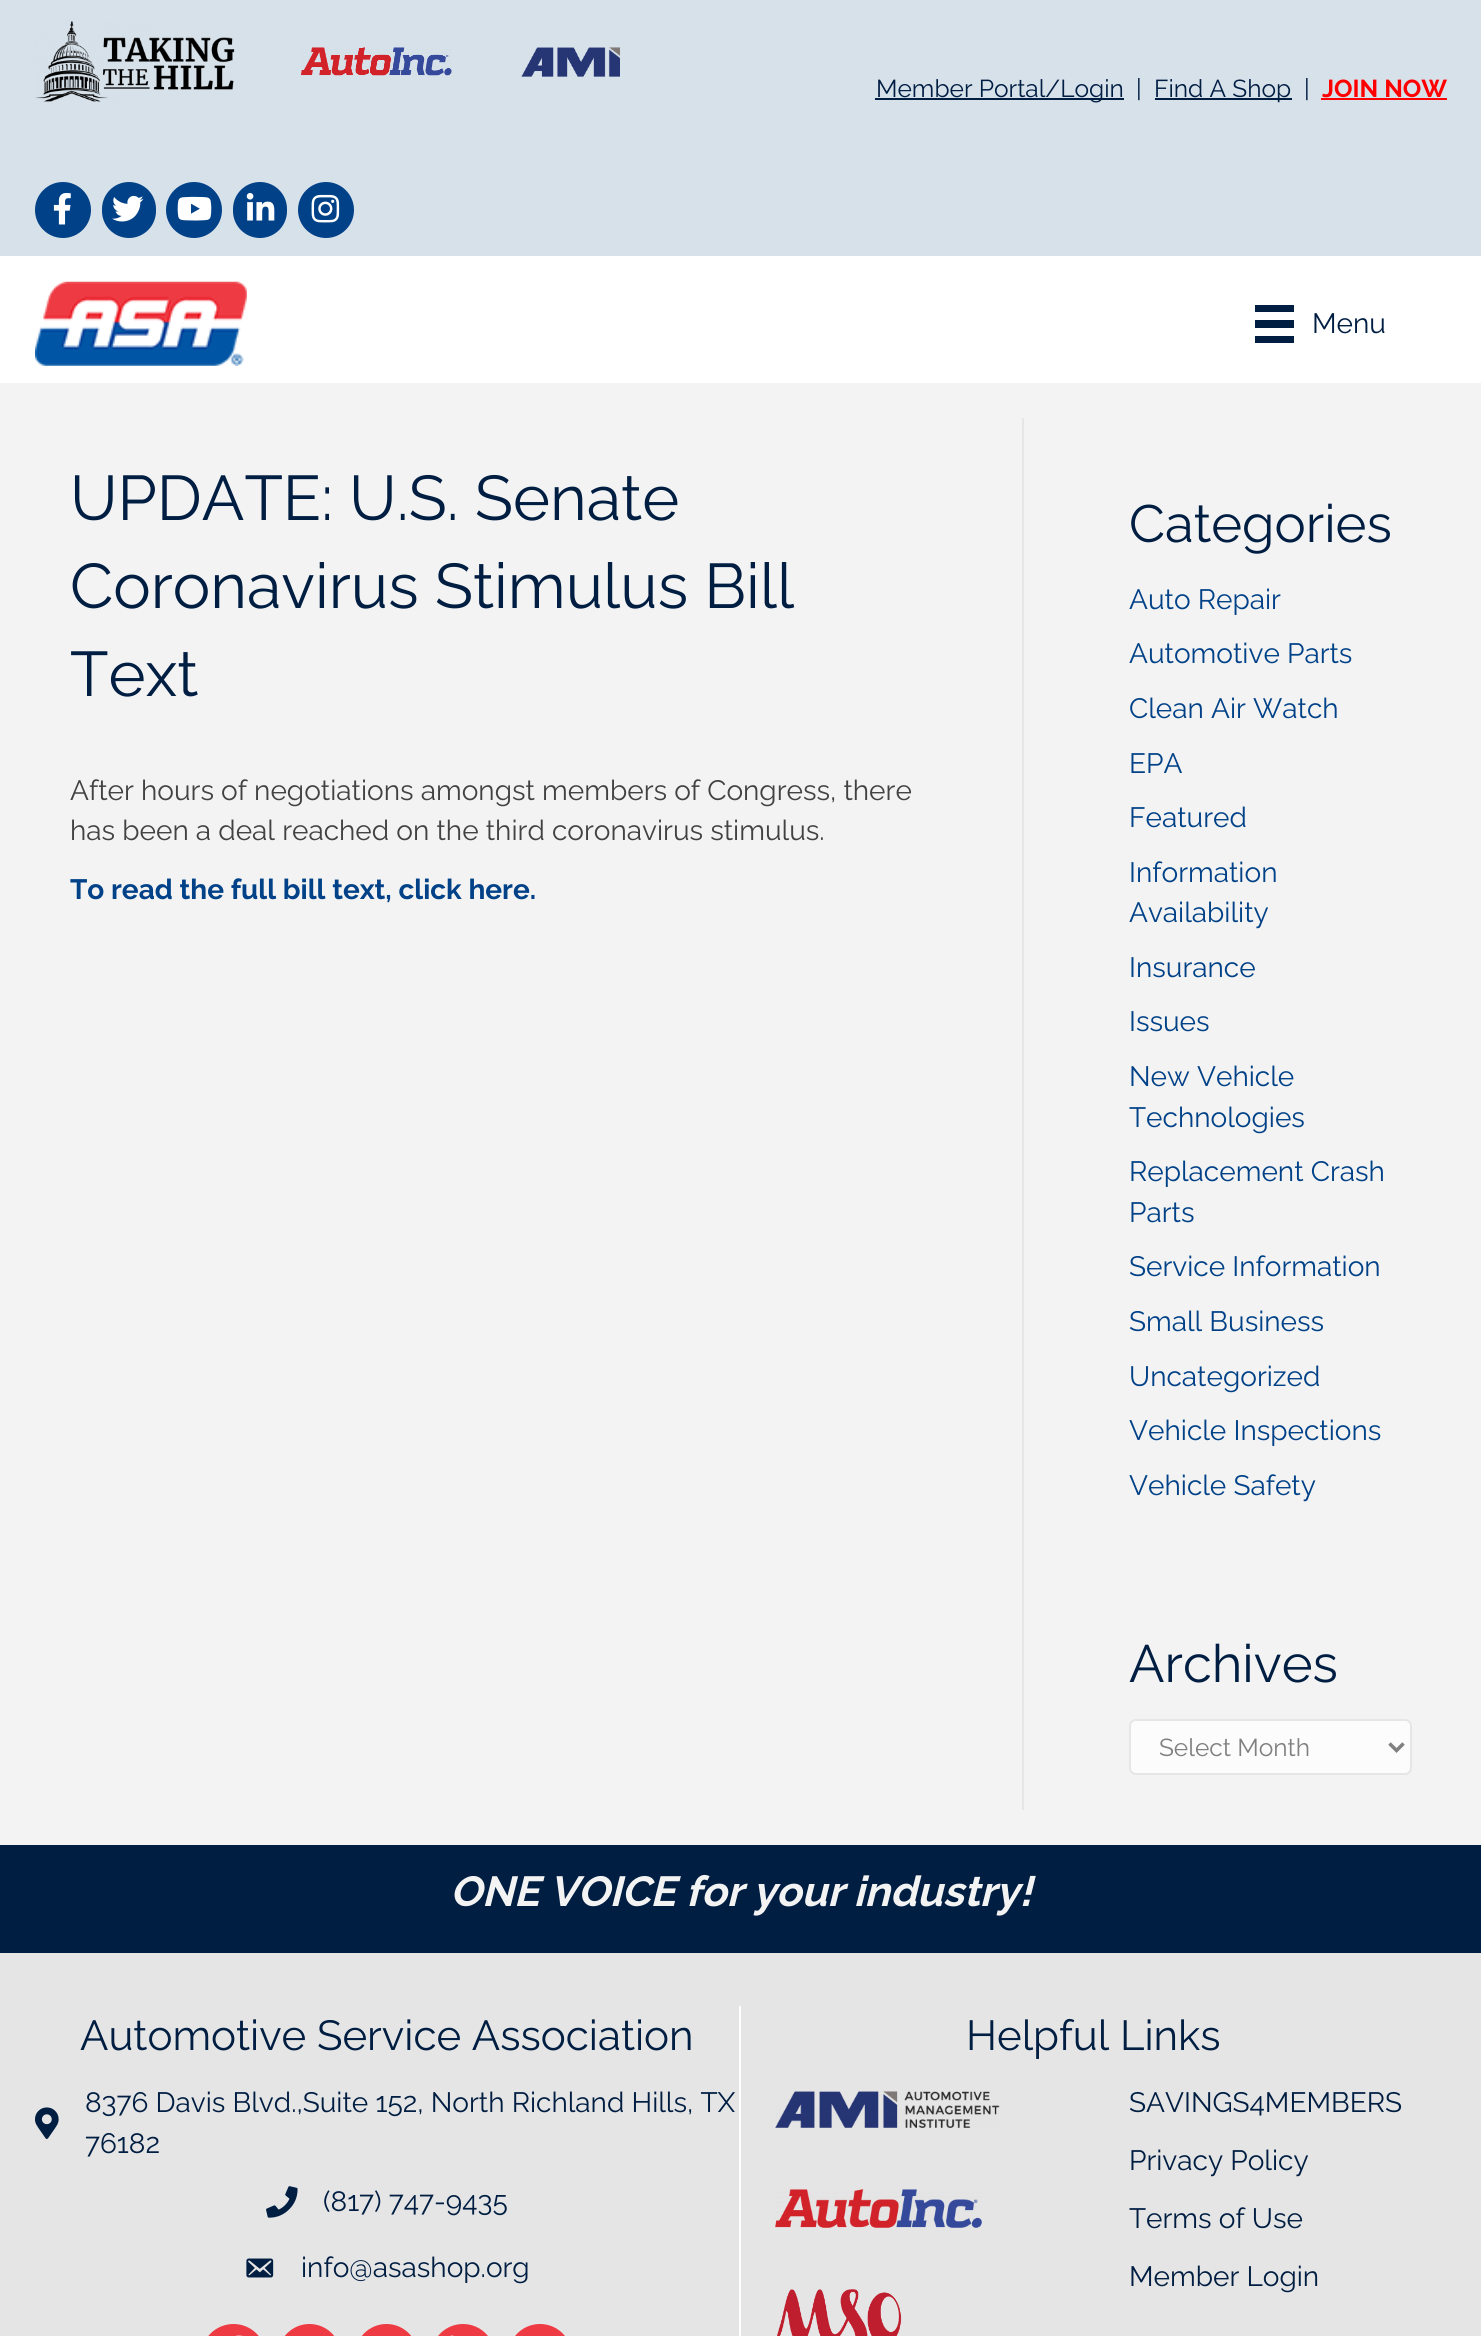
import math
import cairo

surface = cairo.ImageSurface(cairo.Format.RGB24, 1481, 2336)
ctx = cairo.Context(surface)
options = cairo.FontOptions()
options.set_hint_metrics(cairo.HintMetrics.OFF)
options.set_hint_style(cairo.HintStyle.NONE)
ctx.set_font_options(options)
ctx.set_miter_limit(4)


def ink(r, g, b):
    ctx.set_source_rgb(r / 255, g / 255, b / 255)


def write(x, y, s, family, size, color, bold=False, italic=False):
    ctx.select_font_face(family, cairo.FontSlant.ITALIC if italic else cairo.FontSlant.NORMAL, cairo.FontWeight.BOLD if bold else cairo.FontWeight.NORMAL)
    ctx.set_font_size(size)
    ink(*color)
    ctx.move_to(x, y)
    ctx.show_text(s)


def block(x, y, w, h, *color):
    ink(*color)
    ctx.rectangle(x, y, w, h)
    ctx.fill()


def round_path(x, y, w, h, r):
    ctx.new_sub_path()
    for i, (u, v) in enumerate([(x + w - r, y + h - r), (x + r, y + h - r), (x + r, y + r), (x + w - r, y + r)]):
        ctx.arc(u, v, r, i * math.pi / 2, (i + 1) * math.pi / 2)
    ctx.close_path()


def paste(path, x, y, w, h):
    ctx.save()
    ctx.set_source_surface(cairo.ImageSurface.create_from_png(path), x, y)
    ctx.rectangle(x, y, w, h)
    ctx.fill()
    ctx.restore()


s1 = dict(family="Raleway", size=24.5, color=(0, 29, 66))
s2 = dict(family="Raleway", size=24.5, color=(255, 0, 0), bold=True)
s3 = dict(family="Raleway", size=28, color=(0, 29, 66))
s4 = dict(family="Raleway", size=63, color=(0, 29, 66))
s5 = dict(family="Raleway", size=28, color=(66, 66, 66))
s6 = dict(family="Raleway", size=28, color=(0, 65, 135), bold=True)
s7 = dict(family="Raleway", size=52.5, color=(0, 29, 66))
s8 = dict(family="Raleway", size=28, color=(0, 65, 135))
s9 = dict(family="Raleway", size=24.5, color=(128, 128, 128))
s10 = dict(family="Raleway", size=42, color=(243, 243, 243), bold=True, italic=True)
s11 = dict(family="Raleway", size=42, color=(0, 29, 66))

ink(215, 225, 234)
ctx.paint()
paste("pic1.png", 35, 21, 200, 81)
paste("pic2.png", 301, 47, 151, 29)
paste("pic3.png", 521, 47, 99, 30)
block(875, 98, 249, 2, 0, 29, 66)
write(876, 97, "Member Portal/Login", **s1)
write(1136, 97, "|", **s1)
block(1155, 98, 137, 2, 0, 29, 66)
write(1154, 97, "Find A Shop", **s1)
write(1304, 97, "|", **s1)
write(1322, 97, "JOIN NOW", **s2)
block(1321, 98, 126, 2, 255, 0, 0)
ink(0, 65, 135)
ctx.new_path()
ctx.arc(63, 210, 28, 0, 2 * math.pi)
ctx.fill()
paste("pic4.png", 53, 192, 18, 33)
round_path(102, 182, 54, 56, 27)
ctx.fill()
paste("pic5.png", 112, 195, 32, 27)
ctx.arc(194, 210, 28, 0, 2 * math.pi)
ctx.fill()
paste("pic6.png", 177, 196, 35, 25)
round_path(233, 182, 54, 56, 27)
ctx.fill()
paste("pic7.png", 246, 193, 29, 28)
ctx.arc(326, 210, 28, 0, 2 * math.pi)
ctx.fill()
paste("pic8.png", 311, 194, 29, 29)
block(0, 256, 1481, 127, 255, 255, 255)
paste("pic9.png", 35, 281, 212, 85)
block(1255, 305, 39, 7, 0, 29, 66)
block(1255, 320, 39, 8, 0, 29, 66)
block(1255, 336, 39, 7, 0, 29, 66)
write(1312, 333, "Menu", **s3)
block(0, 383, 1481, 1462, 243, 243, 243)
block(1022, 418, 2, 1392, 230, 230, 230)
write(70, 520, "UPDATE: U.S. Senate", **s4)
write(70, 608, "Coronavirus Stimulus Bill", **s4)
write(70, 696, "Text", **s4)
write(70, 800, "After hours of negotiations amongst members of Congress, there", **s5)
write(70, 840, "has been a deal reached on the third coronavirus stimulus.", **s5)
write(70, 899, "To read the full bill text, click here.", **s6)
write(1129, 542, "Categories", **s7)
write(1129, 609, "Auto Repair", **s8)
write(1129, 663, "Automotive Parts", **s8)
write(1129, 718, "Clean Air Watch", **s8)
write(1129, 773, "EPA", **s8)
write(1129, 827, "Featured", **s8)
write(1129, 882, "Information", **s8)
write(1129, 922, "Availability", **s8)
write(1129, 977, "Insurance", **s8)
write(1129, 1031, "Issues", **s8)
write(1129, 1086, "New Vehicle", **s8)
write(1129, 1127, "Technologies", **s8)
write(1129, 1181, "Replacement Crash", **s8)
write(1129, 1222, "Parts", **s8)
write(1129, 1276, "Service Information", **s8)
write(1129, 1331, "Small Business", **s8)
write(1129, 1386, "Uncategorized", **s8)
write(1129, 1440, "Vehicle Inspections", **s8)
write(1129, 1495, "Vehicle Safety", **s8)
write(1129, 1682, "Archives", **s7)
ink(252, 252, 252)
round_path(1130, 1720, 281, 54, 6)
ctx.fill_preserve()
ink(230, 230, 230)
ctx.stroke()
ctx.new_path()
ctx.move_to(1389.5, 1743.5)
ctx.line_to(1396.5, 1750.5)
ctx.line_to(1403.5, 1743.5)
ink(128, 128, 128)
ctx.set_line_width(3.5)
ctx.stroke()
write(1159, 1756, "Select Month", **s9)
block(0, 1845, 1481, 108, 0, 29, 66)
write(450, 1906, "ONE VOICE for your industry!", **s10)
block(0, 1953, 1481, 383, 229, 229, 229)
block(739, 2006, 2, 330, 255, 255, 255)
write(80, 2050, "Automotive Service Association", **s11)
paste("pic10.png", 35, 2107, 24, 32)
write(85, 2112, "8376 Davis Blvd.,Suite 152, North Richland Hills, TX", **s3)
write(85, 2153, "76182", **s3)
paste("pic11.png", 266, 2186, 32, 32)
write(323, 2211, "(817) 747-9435", **s3)
paste("pic12.png", 246, 2258, 28, 20)
write(301, 2277, "info@asashop.org", **s3)
ink(238, 58, 67)
round_path(201, 2324, 65, 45, 32.5)
ctx.fill()
paste("pic13.png", 235, 2335, 8, 1)
round_path(278, 2324, 63, 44, 31.5)
ctx.fill()
round_path(355, 2324, 63, 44, 31.5)
ctx.fill()
round_path(431, 2324, 64, 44, 32)
ctx.fill()
paste("pic14.png", 450, 2335, 4, 1)
round_path(508, 2324, 64, 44, 32)
ctx.fill()
write(966, 2050, "Helpful Links", **s11)
paste("pic15.png", 775, 2091, 225, 37)
paste("pic16.png", 775, 2189, 207, 39)
paste("pic17.png", 777, 2289, 125, 47)
write(1129, 2112, "SAVINGS4MEMBERS", **s3)
write(1129, 2170, "Privacy Policy", **s3)
write(1129, 2228, "Terms of Use", **s3)
write(1129, 2286, "Member Login", **s3)
surface.write_to_png("screenshot.png")
